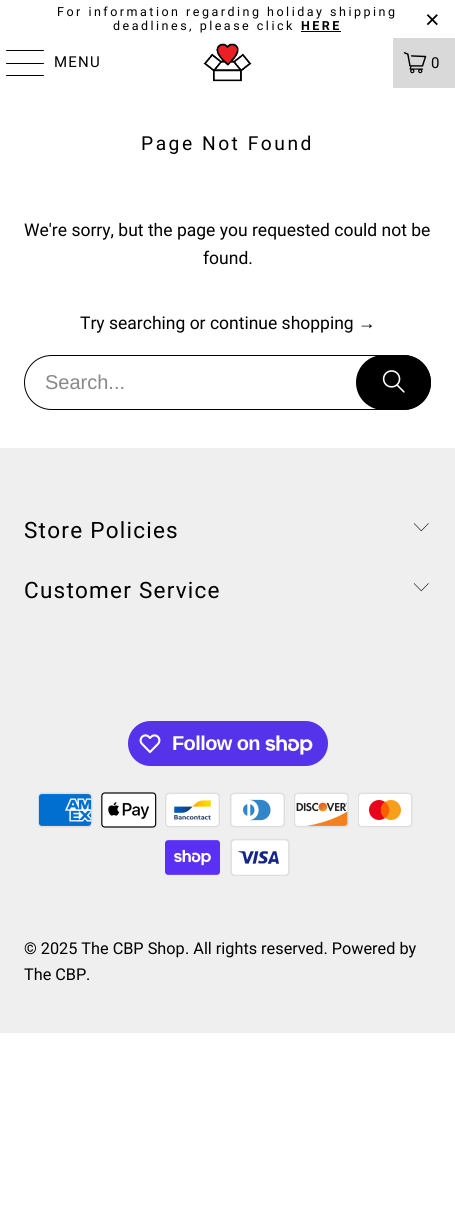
import math
import cairo

surface = cairo.ImageSurface(cairo.Format.RGB24, 455, 1217)
ctx = cairo.Context(surface)
options = cairo.FontOptions()
options.set_hint_metrics(cairo.HintMetrics.OFF)
options.set_hint_style(cairo.HintStyle.NONE)
ctx.set_font_options(options)
ctx.set_miter_limit(4)


def ink(r, g, b):
    ctx.set_source_rgb(r / 255, g / 255, b / 255)


def write(x, y, s, family, size, color, bold=False, italic=False):
    ctx.select_font_face(family, cairo.FontSlant.ITALIC if italic else cairo.FontSlant.NORMAL, cairo.FontWeight.BOLD if bold else cairo.FontWeight.NORMAL)
    ctx.set_font_size(size)
    ink(*color)
    ctx.move_to(x, y)
    ctx.show_text(s)


def write_spaced(x, y, s, letter, word):
    ctx.move_to(x, y)
    for ch in s:
        ctx.show_text(ch)
        ctx.rel_move_to(letter + word * (ch == ' '), 0)


def block(x, y, w, h, *color):
    ink(*color)
    ctx.rectangle(x, y, w, h)
    ctx.fill()


def round_path(x, y, w, h, r):
    ctx.new_sub_path()
    for i, (u, v) in enumerate([(x + w - r, y + h - r), (x + r, y + h - r), (x + r, y + r), (x + w - r, y + r)]):
        ctx.arc(u, v, r, i * math.pi / 2, (i + 1) * math.pi / 2)
    ctx.close_path()


def paste(path, x, y, w, h):
    ctx.save()
    ctx.set_source_surface(cairo.ImageSurface.create_from_png(path), x, y)
    ctx.rectangle(x, y, w, h)
    ctx.fill()
    ctx.restore()


s1 = dict(family="Roboto", size=17.5, color=(0, 0, 0))
s2 = dict(family="Liberation Sans", size=17.5, color=(0, 0, 0))
s3 = dict(family="Liberation Sans", size=20, color=(136, 136, 136))
s4 = dict(family="Roboto", size=16.25, color=(0, 0, 0))

ink(255, 255, 255)
ctx.paint()
ctx.select_font_face("Roboto")
ctx.set_font_size(12.5)
ink(0, 0, 0)
write_spaced(57, 16, "For information regarding holiday shipping", 2.5, 0)
write_spaced(113, 30, "deadlines, please click", 2.5, 0)
ctx.select_font_face("Roboto", cairo.FontSlant.NORMAL, cairo.FontWeight.BOLD)
write_spaced(301, 30, "HERE", 2.5, 0)
block(301, 31, 40, 1, 0, 0, 0)
ctx.select_font_face("Liberation Sans")
ctx.set_font_size(25)
write_spaced(425, 28, "×", 2.5, 0)
round_path(6, 50, 38, 1, 0.5)
ctx.fill()
round_path(6, 63, 38, 1, 0.5)
ctx.fill()
round_path(6, 75, 38, 1, 0.5)
ctx.fill()
ctx.select_font_face("Roboto")
ctx.set_font_size(15)
write_spaced(54, 67, "MENU", 1.25, 0)
paste("pic1.png", 203, 43, 49, 39)
block(393, 38, 62, 50, 217, 217, 217)
paste("pic2.png", 403, 52, 24, 22)
ink(0, 0, 0)
write_spaced(431, 68, "0", 1.25, 0)
ctx.set_font_size(19.25)
write_spaced(141, 150, "Page Not Found", 2.5, 0)
write(24, 236, "We're sorry, but the page you requested could not be", **s1)
write(203, 264, "found.", **s1)
write(80, 329, "Try searching or continue shopping", **s1)
write(358, 329, "→", **s2)
round_path(24.5, 355.5, 406, 54, 27)
ctx.set_line_width(1)
ctx.stroke()
write(45, 389, "Search...", **s3)
ink(0, 0, 0)
round_path(356, 355, 75, 55, 27.5)
ctx.fill()
paste("pic3.png", 382, 370, 23, 23)
block(0, 448, 455, 585, 239, 239, 239)
ctx.select_font_face("Roboto")
ctx.set_font_size(22.5)
ink(0, 0, 0)
write_spaced(24, 538, "Store Policies", 1.25, 0)
paste("pic4.png", 413, 523, 16, 9)
write_spaced(24, 598, "Customer Service", 1.25, 0)
paste("pic4.png", 413, 583, 16, 9)
ink(84, 51, 235)
round_path(128, 721, 200, 45, 22.5)
ctx.fill()
paste("pic5.png", 139, 734, 22, 20)
ctx.select_font_face("Liberation Sans", cairo.FontSlant.NORMAL, cairo.FontWeight.BOLD)
ctx.set_font_size(20)
ink(255, 255, 255)
write_spaced(172, 750, "Follow on", -0.6, 0)
paste("pic6.png", 265, 735, 48, 20)
paste("pic7.png", 38, 792, 55, 36)
paste("pic8.png", 101, 792, 56, 36)
paste("pic9.png", 165, 792, 55, 36)
paste("pic10.png", 230, 792, 55, 36)
paste("pic11.png", 294, 792, 55, 36)
paste("pic12.png", 358, 792, 55, 36)
paste("pic13.png", 165, 840, 55, 35)
paste("pic14.png", 230, 839, 60, 37)
write(24, 954, "© 2025 The CBP Shop", **s4)
write(185, 954, ". All rights reserved. Powered by", **s4)
write(24, 980, "The CBP", **s4)
write(86, 980, ".", **s4)
surface.write_to_png("screenshot.png")
